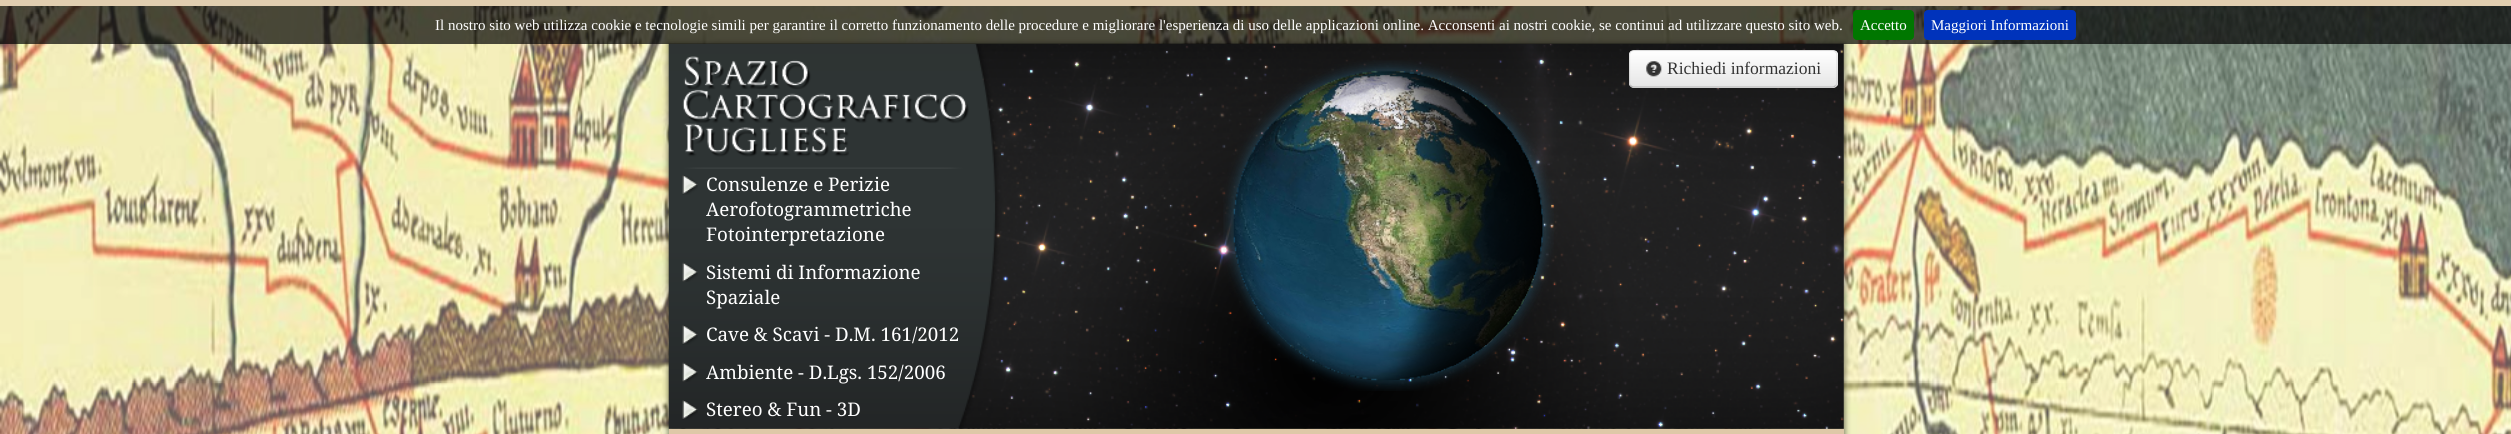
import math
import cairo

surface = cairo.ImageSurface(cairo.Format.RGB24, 2511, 434)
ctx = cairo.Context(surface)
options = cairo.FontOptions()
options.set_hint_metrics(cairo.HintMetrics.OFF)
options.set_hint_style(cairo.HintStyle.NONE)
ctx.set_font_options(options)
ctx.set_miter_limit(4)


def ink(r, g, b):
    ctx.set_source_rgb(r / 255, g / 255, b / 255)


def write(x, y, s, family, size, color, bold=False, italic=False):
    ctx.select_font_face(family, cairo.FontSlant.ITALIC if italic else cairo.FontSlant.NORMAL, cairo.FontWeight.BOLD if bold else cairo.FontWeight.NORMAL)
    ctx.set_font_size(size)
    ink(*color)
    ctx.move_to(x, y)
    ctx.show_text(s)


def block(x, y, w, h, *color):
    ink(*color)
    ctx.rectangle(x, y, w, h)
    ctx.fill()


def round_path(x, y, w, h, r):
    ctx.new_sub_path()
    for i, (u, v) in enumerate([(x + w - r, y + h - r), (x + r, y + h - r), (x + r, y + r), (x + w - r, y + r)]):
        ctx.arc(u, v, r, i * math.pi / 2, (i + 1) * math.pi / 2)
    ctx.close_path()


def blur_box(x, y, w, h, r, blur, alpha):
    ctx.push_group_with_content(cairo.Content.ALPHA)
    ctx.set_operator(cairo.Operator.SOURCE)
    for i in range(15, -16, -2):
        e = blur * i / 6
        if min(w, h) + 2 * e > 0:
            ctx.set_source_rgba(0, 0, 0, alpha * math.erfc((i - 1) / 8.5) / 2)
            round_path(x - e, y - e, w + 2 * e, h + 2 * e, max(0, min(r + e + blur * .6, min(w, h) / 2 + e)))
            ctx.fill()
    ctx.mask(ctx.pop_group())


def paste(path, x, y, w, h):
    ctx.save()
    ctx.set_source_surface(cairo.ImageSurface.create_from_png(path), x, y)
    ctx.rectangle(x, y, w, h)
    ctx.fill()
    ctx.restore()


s1 = dict(family="Liberation Serif", size=15, color=(255, 255, 255))
s2 = dict(family="Liberation Serif", size=17.5, color=(51, 51, 51))
s3 = dict(family="Noto Serif", size=18.75, color=(255, 255, 255))

ink(255, 255, 255)
ctx.paint()
block(0, 0, 2511, 6, 225, 206, 176)
paste("pic1.png", 0, 6, 2511, 428)
ink(0, 0, 0)
blur_box(668, 44, 1177, 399, 0, 3, 0.5)
paste("pic2.png", 668, 43, 1176, 386)
ctx.set_source_rgba(0, 0, 0, 0.7)
ctx.rectangle(0, 6, 2511, 38)
ctx.fill()
write(435, 30, "Il nostro sito web utilizza cookie e tecnologie simili per garantire il corretto funzionamento delle procedure e migliorare l'esperienza di uso delle applicazioni online. Acconsenti ai nostri cookie, se continui ad utilizzare questo sito web.", **s1)
ink(0, 119, 0)
round_path(1853, 10, 61, 30, 4)
ctx.fill()
write(1860, 30, "Accetto", **s1)
ink(0, 51, 187)
round_path(1924, 10, 152, 30, 4)
ctx.fill()
write(1931, 30, "Maggiori Informazioni", **s1)
paste("pic3.png", 682, 56, 287, 113)
paste("pic5.png", 1233, 71, 310, 310)
paste("pic4.png", 1223, 60, 331, 331)
ink(0, 0, 0)
blur_box(1629, 51, 209, 38, 5, 1, 0.05)
ink(245, 245, 245)
round_path(1629, 50, 209, 38, 5)
ctx.fill()
ctx.save()
round_path(1629, 50, 209, 38, 5)
ctx.clip()
gradient = cairo.LinearGradient(1733, 51, 1733, 86)
gradient.add_color_stop_rgba(0, 1, 1, 1, 1)
gradient.add_color_stop_rgba(1, 0.902, 0.902, 0.902, 1)
ctx.set_source(gradient)
ctx.rectangle(1629, 51, 209, 35)
ctx.fill()
ctx.restore()
ctx.new_path()
ctx.move_to(1835.5, 85.5)
ctx.curve_to(1835, 86.5, 1833.5, 87, 1832.5, 87)
ctx.line_to(1634, 87)
ctx.curve_to(1632.5, 87, 1631.5, 86.5, 1630.5, 85.5)
ink(179, 179, 179)
ctx.set_line_width(1.2)
ctx.stroke()
ctx.new_path()
ctx.move_to(1630.5, 85.5)
ctx.curve_to(1630, 85, 1629.5, 83.5, 1629.5, 82.5)
ctx.line_to(1629.5, 55)
ctx.curve_to(1629.5, 54, 1630, 52.5, 1630.5, 52)
ctx.curve_to(1631.5, 51, 1632.5, 50.5, 1634, 50.5)
ctx.line_to(1832.5, 50.5)
ctx.curve_to(1833.5, 50.5, 1835, 51, 1835.5, 52)
ctx.curve_to(1836.5, 52.5, 1837, 54, 1837, 55)
ctx.line_to(1837, 82.5)
ctx.curve_to(1837, 83.5, 1836.5, 85, 1835.5, 85.5)
ctx.set_source_rgba(0, 0, 0, 0.1)
ctx.stroke()
paste("pic6.png", 1646, 61, 16, 16)
write(1667, 74, "Richiedi informazioni", **s2)
paste("pic7.png", 682, 175, 16, 20)
write(706, 191, "Consulenze e Perizie", **s3)
write(706, 216, "Aerofotogrammetriche", **s3)
write(706, 241, "Fotointerpretazione", **s3)
paste("pic8.png", 682, 262, 16, 20)
write(706, 279, "Sistemi di Informazione", **s3)
write(706, 304, "Spaziale", **s3)
paste("pic9.png", 682, 325, 16, 20)
write(706, 341, "Cave & Scavi - D.M. 161/2012", **s3)
paste("pic10.png", 682, 362, 16, 20)
write(706, 379, "Ambiente - D.Lgs. 152/2006", **s3)
paste("pic11.png", 682, 400, 16, 20)
write(706, 416, "Stereo & Fun - 3D", **s3)
block(669, 429, 1175, 5, 222, 200, 167)
surface.write_to_png("screenshot.png")
